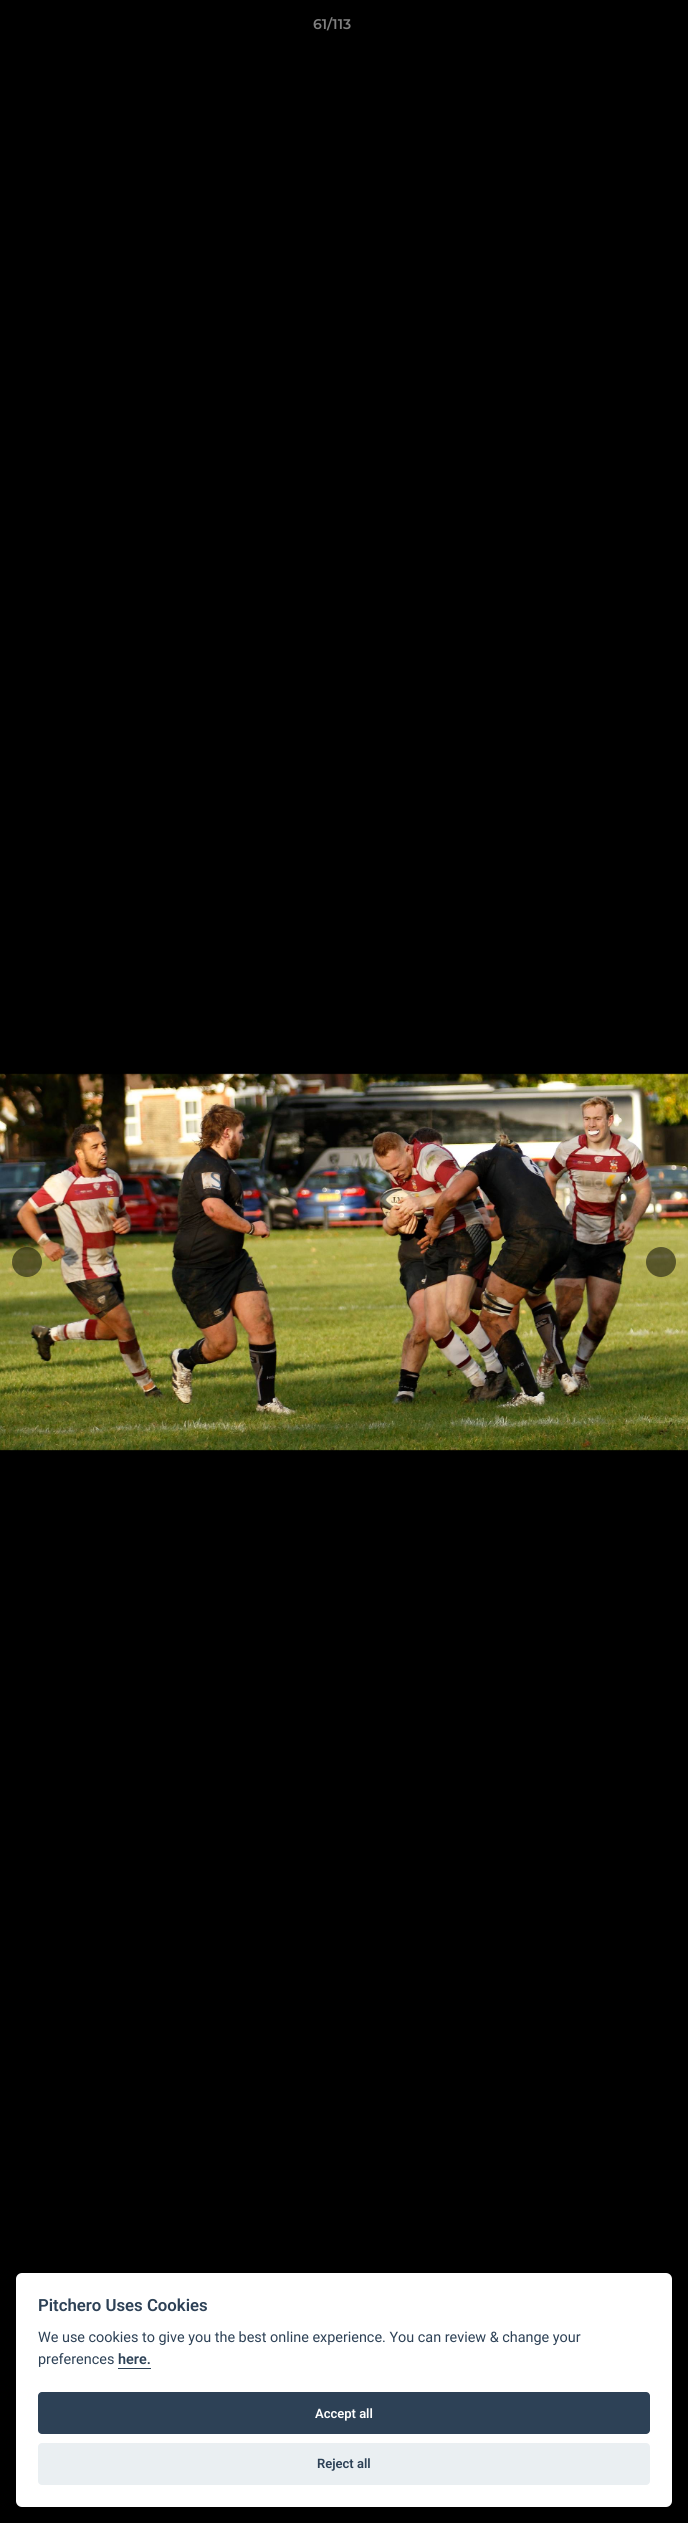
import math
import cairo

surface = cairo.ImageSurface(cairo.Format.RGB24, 688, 2523)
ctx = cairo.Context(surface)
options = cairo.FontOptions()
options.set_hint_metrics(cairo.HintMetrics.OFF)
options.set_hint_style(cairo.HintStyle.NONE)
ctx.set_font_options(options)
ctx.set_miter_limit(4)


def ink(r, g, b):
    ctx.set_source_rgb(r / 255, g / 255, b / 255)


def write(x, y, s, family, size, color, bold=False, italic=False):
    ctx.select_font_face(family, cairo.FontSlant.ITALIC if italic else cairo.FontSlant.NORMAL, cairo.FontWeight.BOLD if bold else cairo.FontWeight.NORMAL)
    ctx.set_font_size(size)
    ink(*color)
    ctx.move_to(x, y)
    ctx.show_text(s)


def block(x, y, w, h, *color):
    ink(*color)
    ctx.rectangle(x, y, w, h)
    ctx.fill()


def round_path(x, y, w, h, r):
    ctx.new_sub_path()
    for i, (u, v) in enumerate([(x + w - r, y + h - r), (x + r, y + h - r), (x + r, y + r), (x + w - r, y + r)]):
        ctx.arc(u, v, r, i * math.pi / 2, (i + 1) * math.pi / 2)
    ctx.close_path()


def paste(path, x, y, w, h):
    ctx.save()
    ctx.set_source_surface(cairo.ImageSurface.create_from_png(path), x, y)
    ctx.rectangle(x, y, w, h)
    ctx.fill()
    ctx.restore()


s1 = dict(family="Montserrat SemiBold", size=14, color=(128, 128, 128))
s2 = dict(family="Roboto SemiBold", size=16.75, color=(45, 65, 86))
s3 = dict(family="Roboto", size=14.4, color=(45, 65, 86))
s4 = dict(family="Roboto SemiBold", size=14.4, color=(45, 65, 86))
s5 = dict(family="Roboto SemiBold", size=13, color=(255, 255, 255))
s6 = dict(family="Roboto SemiBold", size=13, color=(45, 65, 86))

ink(0, 0, 0)
ctx.paint()
write(313, 29, "61/113", **s1)
paste("pic1.png", 0, 1073, 688, 378)
ctx.set_source_rgba(0, 0, 0, 0.5)
ctx.arc(27, 1262, 15, 0, 2 * math.pi)
ctx.fill()
ctx.arc(661, 1262, 15, 0, 2 * math.pi)
ctx.fill()
ink(255, 255, 255)
round_path(16, 2273, 656, 234, 6)
ctx.fill()
write(38, 2311, "Pitchero Uses Cookies", **s2)
write(38, 2342, "We use cookies to give you the best online experience. You can review & change your", **s3)
write(38, 2364, "preferences", **s3)
write(118, 2364, "here.", **s4)
block(118, 2368, 33, 1, 45, 65, 86)
round_path(38, 2392, 612, 42, 4)
ctx.fill()
write(315, 2418, "Accept all", **s5)
ink(234, 239, 242)
round_path(38, 2443, 612, 42, 4)
ctx.fill()
write(317, 2468, "Reject all", **s6)
surface.write_to_png("screenshot.png")
